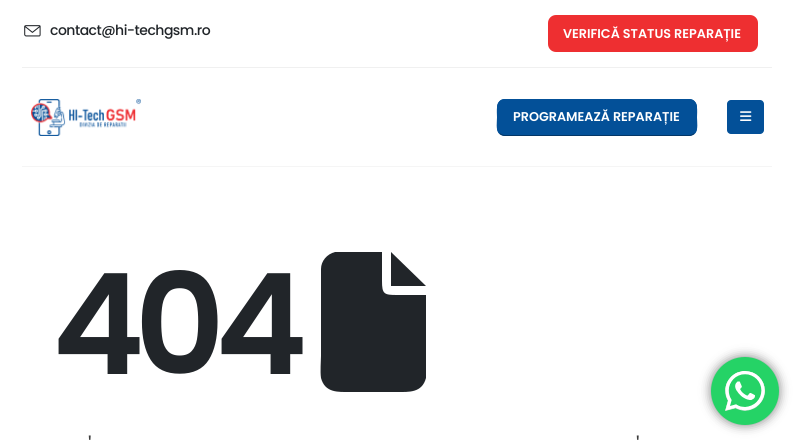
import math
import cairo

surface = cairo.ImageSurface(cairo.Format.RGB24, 794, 440)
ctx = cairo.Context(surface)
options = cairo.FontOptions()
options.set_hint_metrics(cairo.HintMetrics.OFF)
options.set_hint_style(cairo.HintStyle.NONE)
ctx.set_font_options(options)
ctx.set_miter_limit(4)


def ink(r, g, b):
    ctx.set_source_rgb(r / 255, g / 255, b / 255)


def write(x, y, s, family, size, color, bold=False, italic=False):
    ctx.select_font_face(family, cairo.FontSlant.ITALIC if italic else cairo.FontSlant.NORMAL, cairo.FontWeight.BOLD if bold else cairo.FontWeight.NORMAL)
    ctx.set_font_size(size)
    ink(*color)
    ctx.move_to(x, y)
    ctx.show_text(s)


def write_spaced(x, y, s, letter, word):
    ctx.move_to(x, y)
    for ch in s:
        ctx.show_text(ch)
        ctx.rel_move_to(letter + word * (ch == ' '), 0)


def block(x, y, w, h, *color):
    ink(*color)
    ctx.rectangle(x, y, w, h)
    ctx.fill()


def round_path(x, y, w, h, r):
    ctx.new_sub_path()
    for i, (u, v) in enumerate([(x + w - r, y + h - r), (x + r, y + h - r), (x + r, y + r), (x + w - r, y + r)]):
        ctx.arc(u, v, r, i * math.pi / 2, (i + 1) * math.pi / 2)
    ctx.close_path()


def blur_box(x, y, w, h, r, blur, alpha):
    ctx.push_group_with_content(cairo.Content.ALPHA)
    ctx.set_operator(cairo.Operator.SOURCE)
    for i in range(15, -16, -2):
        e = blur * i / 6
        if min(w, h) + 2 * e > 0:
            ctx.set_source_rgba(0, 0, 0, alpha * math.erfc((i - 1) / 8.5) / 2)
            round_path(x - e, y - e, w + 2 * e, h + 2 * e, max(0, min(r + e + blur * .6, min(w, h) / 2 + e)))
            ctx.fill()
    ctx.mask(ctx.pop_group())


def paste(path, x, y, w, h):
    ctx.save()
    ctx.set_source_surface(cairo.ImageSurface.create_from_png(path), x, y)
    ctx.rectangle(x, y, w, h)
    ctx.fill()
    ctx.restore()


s1 = dict(family="Poppins SemiBold", size=12.75, color=(255, 255, 255))
s2 = dict(family="Poppins", size=22, color=(61, 61, 61))

ink(255, 255, 255)
ctx.paint()
block(22, 67, 750, 1, 240, 240, 240)
paste("pic1.png", 24, 25, 17, 12)
ctx.select_font_face("Poppins Medium")
ctx.set_font_size(14)
ink(33, 37, 41)
write_spaced(50, 35, "contact@hi-techgsm.ro", -0.5, 0)
ink(238, 47, 49)
round_path(548, 15, 210, 37, 8)
ctx.fill()
write(563, 38, "VERIFICĂ STATUS REPARAȚIE", **s1)
block(22, 166, 750, 1, 245, 245, 245)
paste("pic2.png", 31, 99, 110, 37)
ink(3, 80, 152)
round_path(497, 99, 200, 37, 8)
ctx.fill()
ctx.new_path()
ctx.move_to(694.5, 133.5)
ctx.curve_to(693, 134.5, 691, 135.5, 689, 135.5)
ctx.line_to(505, 135.5)
ctx.curve_to(503, 135.5, 501, 134.5, 499.5, 133.5)
ink(3, 54, 102)
ctx.set_line_width(1)
ctx.stroke()
ctx.new_path()
ctx.move_to(499.5, 133.5)
ctx.curve_to(496, 129.5, 497.5, 122, 497.5, 117.5)
ctx.curve_to(497.5, 111.5, 495.5, 99.5, 505, 99.5)
ctx.line_to(689, 99.5)
ctx.curve_to(698.5, 99.5, 696.5, 111.5, 696.5, 117.5)
ctx.curve_to(696.5, 122, 698, 129.5, 694.5, 133.5)
ink(3, 80, 152)
ctx.stroke()
write(513, 121, "PROGRAMEAZĂ REPARAȚIE", **s1)
ink(3, 80, 152)
round_path(727, 100, 37, 34, 4)
ctx.fill()
paste("pic3.png", 740, 111, 12, 10)
ctx.set_font_size(140)
ink(33, 37, 41)
write_spaced(52, 374, "404", -10, 0)
ctx.new_path()
ctx.move_to(321, 269)
ctx.curve_to(321, 261, 327, 254, 335, 252)
ctx.line_to(382, 252)
ctx.line_to(382, 281)
ctx.curve_to(382, 294, 384, 295, 397, 295)
ctx.line_to(426, 295)
ctx.line_to(426, 378)
ctx.curve_to(422, 393, 409, 392, 397, 392)
ctx.line_to(350, 392)
ctx.curve_to(338, 392, 325, 393, 321, 378)
ctx.curve_to(320, 371, 321, 361, 321, 356)
ctx.close_path()
ctx.move_to(426, 286)
ctx.line_to(391, 286)
ctx.line_to(391, 252)
ctx.close_path()
ctx.fill()
write(88, 453, "'", **s2)
write(636, 453, "'", **s2)
ink(0, 0, 0)
blur_box(711, 357, 68, 68, 34, 5.5, 0.5)
ink(37, 211, 102)
ctx.arc(745, 391, 34, 0, 2 * math.pi)
ctx.fill()
paste("pic4.png", 725, 371, 40, 40)
surface.write_to_png("screenshot.png")
